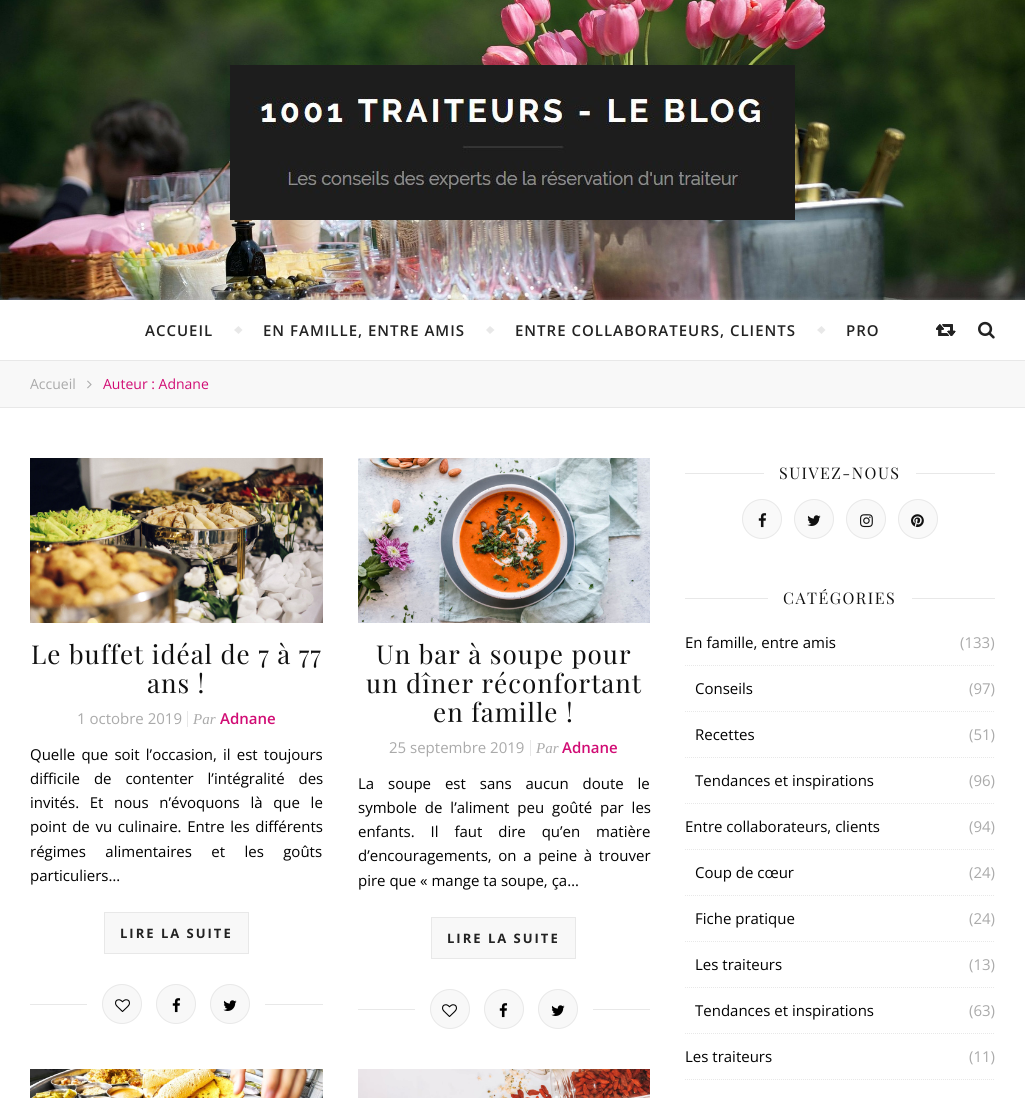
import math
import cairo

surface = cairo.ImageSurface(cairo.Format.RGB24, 1025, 1098)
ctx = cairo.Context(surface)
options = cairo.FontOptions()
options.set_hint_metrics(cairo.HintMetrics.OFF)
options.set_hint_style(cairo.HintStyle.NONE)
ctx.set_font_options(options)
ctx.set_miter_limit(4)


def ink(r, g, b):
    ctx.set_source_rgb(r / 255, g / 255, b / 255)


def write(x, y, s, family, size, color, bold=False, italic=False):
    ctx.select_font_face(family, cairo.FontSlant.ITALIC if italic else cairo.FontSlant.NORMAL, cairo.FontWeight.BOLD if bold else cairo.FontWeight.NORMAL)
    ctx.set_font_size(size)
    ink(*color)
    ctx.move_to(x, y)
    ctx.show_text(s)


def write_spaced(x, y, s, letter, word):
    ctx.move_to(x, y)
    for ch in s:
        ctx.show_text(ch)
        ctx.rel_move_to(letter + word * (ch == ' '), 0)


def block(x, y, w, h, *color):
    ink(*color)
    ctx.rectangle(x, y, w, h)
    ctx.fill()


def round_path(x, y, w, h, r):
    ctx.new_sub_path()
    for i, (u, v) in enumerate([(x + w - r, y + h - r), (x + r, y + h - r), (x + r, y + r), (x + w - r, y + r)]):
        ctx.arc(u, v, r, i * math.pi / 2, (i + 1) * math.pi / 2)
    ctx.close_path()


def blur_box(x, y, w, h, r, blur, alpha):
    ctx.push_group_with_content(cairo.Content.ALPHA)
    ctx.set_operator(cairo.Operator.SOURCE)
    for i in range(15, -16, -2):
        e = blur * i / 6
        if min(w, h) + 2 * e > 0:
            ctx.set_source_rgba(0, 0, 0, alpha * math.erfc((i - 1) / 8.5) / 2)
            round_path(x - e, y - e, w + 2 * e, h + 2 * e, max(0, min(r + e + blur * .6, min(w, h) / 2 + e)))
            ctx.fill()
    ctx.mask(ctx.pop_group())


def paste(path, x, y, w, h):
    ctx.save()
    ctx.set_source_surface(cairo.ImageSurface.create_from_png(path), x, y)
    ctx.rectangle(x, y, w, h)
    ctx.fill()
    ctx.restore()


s1 = dict(family="Open Sans", size=14, color=(170, 170, 170))
s2 = dict(family="Open Sans", size=14, color=(209, 12, 116))
s3 = dict(family="Open Sans", size=15, color=(170, 170, 170))
s4 = dict(family="Liberation Serif", size=15, color=(170, 170, 170), italic=True)
s5 = dict(family="Open Sans SemiBold", size=15, color=(209, 12, 116))
s6 = dict(family="Open Sans", size=15, color=(0, 0, 0))

ink(255, 255, 255)
ctx.paint()
paste("pic1.png", 0, 0, 1025, 300)
paste("pic2.png", 230, 65, 565, 155)
ctx.save()
ctx.rectangle(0, 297, 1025, 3)
ctx.clip()
ink(185, 185, 185)
blur_box(0, 301, 1025, 60, 0, 2.5, 0.5)
ctx.restore()
paste("pic3.png", 936, 324, 20, 12)
paste("pic4.png", 978, 321, 17, 18)
paste("pic5.png", 936, 324, 20, 12)
paste("pic6.png", 936, 324, 20, 12)
ctx.select_font_face("Open Sans SemiBold")
ctx.set_font_size(15)
ink(34, 34, 34)
write_spaced(145, 336, "ACCUEIL", 1, 0)
ink(232, 232, 232)
ctx.new_path()
ctx.move_to(234, 330)
ctx.line_to(238.5, 326)
ctx.line_to(242.5, 330)
ctx.line_to(238.5, 334)
ctx.close_path()
ctx.fill()
ink(34, 34, 34)
write_spaced(263, 336, "EN FAMILLE, ENTRE AMIS", 1, 0)
ink(232, 232, 232)
ctx.new_path()
ctx.move_to(486, 330)
ctx.line_to(490, 326)
ctx.line_to(494.5, 330)
ctx.line_to(490, 334)
ctx.close_path()
ctx.fill()
ink(34, 34, 34)
write_spaced(515, 336, "ENTRE COLLABORATEURS, CLIENTS", 1, 0)
ink(232, 232, 232)
ctx.new_path()
ctx.move_to(817, 330)
ctx.line_to(821.5, 326)
ctx.line_to(825.5, 330)
ctx.line_to(821.5, 334)
ctx.close_path()
ctx.fill()
ink(34, 34, 34)
write_spaced(846, 336, "PRO", 1, 0)
paste("pic7.png", 936, 324, 20, 12)
block(0, 361, 1025, 46, 248, 248, 248)
block(0, 360, 1025, 1, 232, 232, 232)
block(0, 407, 1025, 1, 232, 232, 232)
write(30, 389, "Accueil", **s1)
paste("pic8.png", 87, 380, 5, 9)
write(103, 389, "Auteur : Adnane", **s2)
paste("pic9.png", 30, 458, 293, 165)
ctx.select_font_face("Playfair Display")
ctx.set_font_size(26)
ink(17, 17, 17)
write_spaced(31, 664, "Le buffet idéal de 7 à 77", 1, 0)
write_spaced(147, 693, "ans !", 1, 0)
write(77, 724, "1 octobre 2019", **s3)
write(193, 724, "Par", **s4)
block(187, 711, 1, 16, 232, 232, 232)
write(220, 724, "Adnane", **s5)
ctx.select_font_face("Open Sans")
ink(0, 0, 0)
write_spaced(30, 760, "Quelle que soit l’occasion, il est toujours", 0, 2.25)
write_spaced(30, 784, "difficile de contenter l’intégralité des", 0, 10)
write_spaced(30, 808, "invités. Et nous n’évoquons là que le", 0, 6.75)
write_spaced(30, 832, "point de vu culinaire. Entre les différents", 0, 1.75)
write_spaced(30, 857, "régimes alimentaires et les goûts", 0, 15.5)
write(30, 881, "particuliers…", **s6)
ink(248, 248, 248)
ctx.rectangle(104.5, 912.5, 144, 41)
ctx.fill_preserve()
ink(232, 232, 232)
ctx.set_line_width(1)
ctx.stroke()
ctx.select_font_face("Open Sans", cairo.FontSlant.NORMAL, cairo.FontWeight.BOLD)
ctx.set_font_size(13)
ink(34, 34, 34)
write_spaced(120, 938, "LIRE LA SUITE", 2, 0)
block(30, 1004, 57, 1, 232, 232, 232)
ink(248, 248, 248)
ctx.new_path()
ctx.arc(122, 1004, 19.5, 0, 2 * math.pi)
ctx.fill_preserve()
ink(232, 232, 232)
ctx.stroke()
paste("pic10.png", 115, 999, 15, 13)
ink(248, 248, 248)
ctx.arc(176, 1004, 19.5, 0, 2 * math.pi)
ctx.fill_preserve()
ink(232, 232, 232)
ctx.stroke()
paste("pic11.png", 172, 998, 9, 15)
ink(248, 248, 248)
ctx.arc(230, 1004, 19.5, 0, 2 * math.pi)
ctx.fill_preserve()
ink(232, 232, 232)
ctx.stroke()
paste("pic12.png", 223, 1000, 14, 11)
block(265, 1004, 58, 1, 232, 232, 232)
paste("pic13.png", 358, 458, 292, 165)
ctx.select_font_face("Playfair Display")
ctx.set_font_size(26)
ink(17, 17, 17)
write_spaced(376, 664, "Un bar à soupe pour", 1, 0)
write_spaced(366, 693, "un dîner réconfortant", 1, 0)
write_spaced(433, 722, "en famille !", 1, 0)
write(389, 753, "25 septembre 2019", **s3)
write(536, 753, "Par", **s4)
block(530, 740, 1, 16, 232, 232, 232)
write(562, 753, "Adnane", **s5)
ctx.select_font_face("Open Sans")
ink(0, 0, 0)
write_spaced(358, 789, "La soupe est sans aucun doute le", 0, 10)
write_spaced(358, 813, "symbole de l’aliment peu goûté par les", 0, 4)
write_spaced(358, 837, "enfants. Il faut dire qu’en matière", 0, 12)
write_spaced(358, 861, "d’encouragements, on a peine à trouver", 0, 2.75)
write(358, 886, "pire que « mange ta soupe, ça…", **s6)
ink(248, 248, 248)
ctx.rectangle(431.5, 917.5, 144, 41)
ctx.fill_preserve()
ink(232, 232, 232)
ctx.stroke()
ctx.select_font_face("Open Sans", cairo.FontSlant.NORMAL, cairo.FontWeight.BOLD)
ctx.set_font_size(13)
ink(34, 34, 34)
write_spaced(447, 943, "LIRE LA SUITE", 2, 0)
block(358, 1009, 57, 1, 232, 232, 232)
ink(248, 248, 248)
ctx.new_path()
ctx.arc(450, 1009, 19.5, 0, 2 * math.pi)
ctx.fill_preserve()
ink(232, 232, 232)
ctx.stroke()
paste("pic10.png", 442, 1004, 15, 13)
ink(248, 248, 248)
ctx.arc(504, 1009, 19.5, 0, 2 * math.pi)
ctx.fill_preserve()
ink(232, 232, 232)
ctx.stroke()
paste("pic11.png", 499, 1003, 9, 15)
ink(248, 248, 248)
ctx.arc(558, 1009, 19.5, 0, 2 * math.pi)
ctx.fill_preserve()
ink(232, 232, 232)
ctx.stroke()
paste("pic12.png", 551, 1005, 14, 11)
block(593, 1009, 57, 1, 232, 232, 232)
paste("pic14.png", 30, 1069, 293, 29)
paste("pic15.png", 358, 1069, 292, 29)
block(685, 473, 79, 1, 232, 232, 232)
ctx.select_font_face("Playfair Display")
ctx.set_font_size(16)
ink(17, 17, 17)
write_spaced(779, 479, "SUIVEZ-NOUS", 1.5, 0)
block(916, 473, 79, 1, 232, 232, 232)
ink(249, 249, 249)
ctx.new_path()
ctx.arc(762, 519, 19.5, 0, 2 * math.pi)
ctx.fill_preserve()
ink(232, 232, 232)
ctx.stroke()
paste("pic16.png", 758, 513, 9, 15)
ink(249, 249, 249)
ctx.arc(814, 519, 19.5, 0, 2 * math.pi)
ctx.fill_preserve()
ink(232, 232, 232)
ctx.stroke()
paste("pic17.png", 807, 515, 14, 11)
ink(249, 249, 249)
ctx.arc(866, 519, 19.5, 0, 2 * math.pi)
ctx.fill_preserve()
ink(232, 232, 232)
ctx.stroke()
paste("pic18.png", 860, 514, 13, 14)
ink(249, 249, 249)
ctx.arc(918, 519, 19.5, 0, 2 * math.pi)
ctx.fill_preserve()
ink(232, 232, 232)
ctx.stroke()
paste("pic19.png", 911, 514, 13, 14)
block(685, 598, 83, 1, 232, 232, 232)
ink(17, 17, 17)
write_spaced(783, 604, "CATÉGORIES", 1.5, 0)
block(912, 598, 83, 1, 232, 232, 232)
ctx.new_path()
ctx.move_to(685, 803.5)
ctx.line_to(995, 803.5)
ctx.set_dash([1, 1])
ctx.stroke()
write(685, 648, "En famille, entre amis", **s6)
write(960, 648, "(133)", **s3)
ctx.new_path()
ctx.move_to(685, 665.5)
ctx.line_to(995, 665.5)
ink(232, 232, 232)
ctx.stroke()
write(695, 694, "Conseils", **s6)
write(969, 694, "(97)", **s3)
ctx.new_path()
ctx.move_to(685, 711.5)
ctx.line_to(995, 711.5)
ink(232, 232, 232)
ctx.stroke()
write(695, 740, "Recettes", **s6)
write(969, 740, "(51)", **s3)
ctx.new_path()
ctx.move_to(685, 757.5)
ctx.line_to(995, 757.5)
ink(232, 232, 232)
ctx.stroke()
write(695, 786, "Tendances et inspirations", **s6)
write(969, 786, "(96)", **s3)
ctx.new_path()
ctx.move_to(685, 1033.5)
ctx.line_to(995, 1033.5)
ink(232, 232, 232)
ctx.stroke()
write(685, 832, "Entre collaborateurs, clients", **s6)
write(969, 832, "(94)", **s3)
ctx.new_path()
ctx.move_to(685, 849.5)
ctx.line_to(995, 849.5)
ink(232, 232, 232)
ctx.stroke()
write(695, 878, "Coup de cœur", **s6)
write(969, 878, "(24)", **s3)
ctx.new_path()
ctx.move_to(685, 895.5)
ctx.line_to(995, 895.5)
ink(232, 232, 232)
ctx.stroke()
write(695, 924, "Fiche pratique", **s6)
write(969, 924, "(24)", **s3)
ctx.new_path()
ctx.move_to(685, 941.5)
ctx.line_to(995, 941.5)
ink(232, 232, 232)
ctx.stroke()
write(695, 970, "Les traiteurs", **s6)
write(969, 970, "(13)", **s3)
ctx.new_path()
ctx.move_to(685, 987.5)
ctx.line_to(995, 987.5)
ink(232, 232, 232)
ctx.stroke()
write(695, 1016, "Tendances et inspirations", **s6)
write(969, 1016, "(63)", **s3)
write(685, 1062, "Les traiteurs", **s6)
write(969, 1062, "(11)", **s3)
ctx.new_path()
ctx.move_to(685, 1079.5)
ctx.line_to(995, 1079.5)
ink(232, 232, 232)
ctx.stroke()
surface.write_to_png("screenshot.png")
